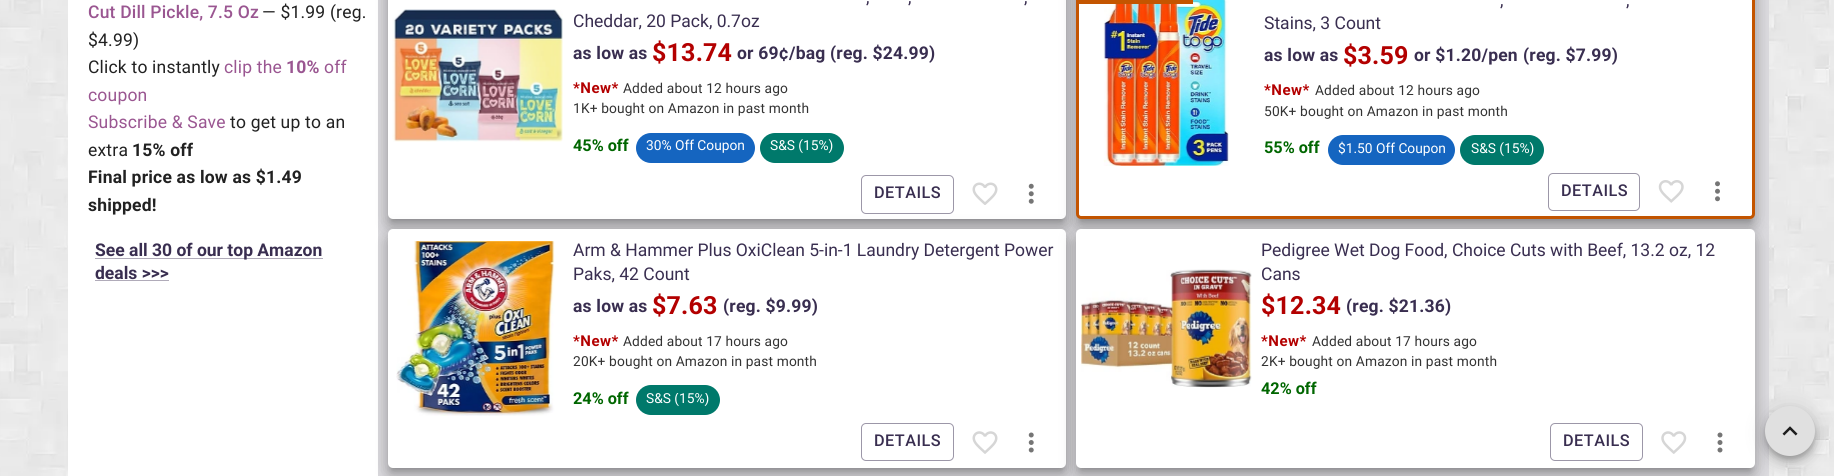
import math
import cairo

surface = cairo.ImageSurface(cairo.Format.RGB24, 1834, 476)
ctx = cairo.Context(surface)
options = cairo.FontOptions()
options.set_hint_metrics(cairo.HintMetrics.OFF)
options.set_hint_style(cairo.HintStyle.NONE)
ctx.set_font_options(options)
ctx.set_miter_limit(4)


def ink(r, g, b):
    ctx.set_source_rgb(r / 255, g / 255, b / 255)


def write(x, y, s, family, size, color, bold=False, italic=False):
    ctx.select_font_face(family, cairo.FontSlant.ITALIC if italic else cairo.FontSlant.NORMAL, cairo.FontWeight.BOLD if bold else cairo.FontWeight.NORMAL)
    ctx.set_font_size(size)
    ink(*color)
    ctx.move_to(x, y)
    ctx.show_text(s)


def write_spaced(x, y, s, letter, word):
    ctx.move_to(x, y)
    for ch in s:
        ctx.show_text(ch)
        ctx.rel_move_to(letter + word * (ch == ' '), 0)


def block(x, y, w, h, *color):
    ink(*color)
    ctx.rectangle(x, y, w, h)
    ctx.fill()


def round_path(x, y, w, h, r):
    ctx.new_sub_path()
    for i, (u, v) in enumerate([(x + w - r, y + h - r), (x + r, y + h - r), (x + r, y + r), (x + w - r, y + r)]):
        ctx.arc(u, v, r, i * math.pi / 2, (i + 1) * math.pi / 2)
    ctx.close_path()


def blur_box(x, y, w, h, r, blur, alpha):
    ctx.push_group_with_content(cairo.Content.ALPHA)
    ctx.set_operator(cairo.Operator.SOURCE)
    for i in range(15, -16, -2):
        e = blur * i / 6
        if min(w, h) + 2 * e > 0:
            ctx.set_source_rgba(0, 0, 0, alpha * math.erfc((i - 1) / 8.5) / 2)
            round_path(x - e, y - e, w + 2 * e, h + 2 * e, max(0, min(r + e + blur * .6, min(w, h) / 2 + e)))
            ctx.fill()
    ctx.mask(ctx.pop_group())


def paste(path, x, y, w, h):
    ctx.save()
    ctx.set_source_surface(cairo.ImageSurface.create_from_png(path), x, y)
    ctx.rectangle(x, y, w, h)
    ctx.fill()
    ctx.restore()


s1 = dict(family="Roboto", size=17.5, color=(57, 46, 80), bold=True)
s2 = dict(family="Roboto", size=17.5, color=(57, 46, 80))
s3 = dict(family="Roboto", size=16.25, color=(0, 102, 0), bold=True)
s4 = dict(family="Roboto", size=13.75, color=(255, 255, 255))

ink(255, 255, 255)
ctx.paint()
paste("pic1.png", 0, 0, 1834, 476)
block(68, 0, 310, 476, 255, 255, 255)
ctx.select_font_face("Roboto Medium")
ctx.set_font_size(17.5)
ink(154, 86, 145)
write_spaced(88, 18, "Cut Dill Pickle, 7.5 Oz", 0.2, 0)
ctx.select_font_face("Roboto")
ink(33, 33, 33)
write_spaced(262, 18, "— $1.99 (reg.", 0.2, 0)
write_spaced(88, 46, "$4.99)", 0.2, 0)
write_spaced(88, 73, "Click to instantly", 0.2, 0)
ink(154, 86, 145)
write_spaced(224, 73, "clip the", 0.2, 0)
ctx.select_font_face("Roboto", cairo.FontSlant.NORMAL, cairo.FontWeight.BOLD)
write_spaced(286, 73, "10%", 0.2, 0)
ctx.select_font_face("Roboto")
write_spaced(324, 73, "off", 0.2, 0)
write_spaced(88, 101, "coupon", 0.2, 0)
write_spaced(88, 128, "Subscribe & Save", 0.2, 0)
ink(33, 33, 33)
write_spaced(230, 128, "to get up to an", 0.2, 0)
write_spaced(88, 156, "extra", 0.2, 0)
ctx.select_font_face("Roboto", cairo.FontSlant.NORMAL, cairo.FontWeight.BOLD)
write_spaced(132, 156, "15% off", 0.2, 0)
write_spaced(88, 183, "Final price as low as $1.49", 0.2, 0)
write_spaced(88, 211, "shipped!", 0.2, 0)
block(95, 258, 228, 1, 176, 171, 185)
write(95, 256, "See all 30 of our top Amazon", **s1)
write(95, 279, "deals >>>", **s1)
block(95, 280, 74, 1, 176, 171, 185)
block(378, 0, 1391, 476, 220, 219, 223)
ctx.save()
ctx.rectangle(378, 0, 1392, 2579)
ctx.clip()
ink(0, 0, 0)
blur_box(385, -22, 684, 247, 8, 9, 0.12)
ctx.restore()
ink(0, 0, 0)
blur_box(386, -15, 682, 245, 6, 6, 0.14)
blur_box(391, -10, 672, 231, 1, 3, 0.2)
ink(255, 255, 255)
round_path(388, -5, 678, 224, 5)
ctx.fill()
paste("pic2.png", 392, 9, 171, 133)
write(866, 3, ",", **s2)
write(908, 3, ",", **s2)
write(1024, 3, ",", **s2)
write(573, 27, "Cheddar, 20 Pack, 0.7oz", **s2)
ctx.select_font_face("Roboto", cairo.FontSlant.NORMAL, cairo.FontWeight.BOLD)
write_spaced(573, 59, "as low as", 0.2, 0)
ctx.set_font_size(25)
ink(179, 0, 0)
write_spaced(652, 61, "$13.74", 0.2, 0)
ctx.set_font_size(17.5)
ink(57, 46, 80)
write_spaced(737, 59, "or 69¢/bag", 0.2, 0)
write_spaced(830, 59, "(reg. $24.99)", 0.2, 0)
ctx.set_font_size(15)
ink(179, 0, 0)
write_spaced(573, 93, "*New*", 0.5, 0)
ctx.select_font_face("Roboto")
ctx.set_font_size(13.75)
ink(51, 51, 51)
write_spaced(623, 93, "Added about 12 hours ago", 0.15, 0)
write_spaced(573, 113, "1K+ bought on Amazon in past month", 0.15, 0)
write(573, 151, "45% off", **s3)
ink(21, 101, 192)
round_path(636, 133, 119, 30, 15)
ctx.fill()
write(646, 150, "30% Off Coupon", **s4)
ink(0, 121, 107)
round_path(760, 133, 84, 30, 15)
ctx.fill()
write(770, 150, "S&S (15%)", **s4)
round_path(861.5, 175.5, 92, 38, 4.5)
ink(156, 151, 168)
ctx.set_line_width(1)
ctx.stroke()
ctx.select_font_face("Roboto Medium")
ctx.set_font_size(16.25)
ink(57, 46, 80)
write_spaced(874, 198, "DETAILS", 0.5, 0)
paste("pic3.png", 972, 182, 26, 23)
paste("pic4.png", 1028, 183, 6, 21)
ink(0, 0, 0)
blur_box(1074, -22, 684, 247, 8, 9, 0.12)
blur_box(1075, -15, 681, 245, 6, 6, 0.14)
blur_box(1080, -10, 671, 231, 1, 3, 0.2)
ink(255, 255, 255)
round_path(1077.5, -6.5, 676, 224, 3.5)
ctx.fill_preserve()
ink(196, 85, 0)
ctx.set_line_width(3)
ctx.stroke()
paste("pic5.png", 1103, 0, 126, 166)
block(1079, 0, 114, 4, 196, 85, 0)
write(1500, 6, ",", **s2)
write(1626, 6, ",", **s2)
write(1264, 29, "Stains, 3 Count", **s2)
ctx.select_font_face("Roboto", cairo.FontSlant.NORMAL, cairo.FontWeight.BOLD)
write_spaced(1264, 61, "as low as", 0.2, 0)
ctx.set_font_size(25)
ink(179, 0, 0)
write_spaced(1343, 64, "$3.59", 0.2, 0)
ctx.set_font_size(17.5)
ink(57, 46, 80)
write_spaced(1414, 61, "or $1.20/pen", 0.2, 0)
write_spaced(1523, 61, "(reg. $7.99)", 0.2, 0)
ctx.set_font_size(15)
ink(179, 0, 0)
write_spaced(1264, 95, "*New*", 0.5, 0)
ctx.select_font_face("Roboto")
ctx.set_font_size(13.75)
ink(51, 51, 51)
write_spaced(1315, 95, "Added about 12 hours ago", 0.15, 0)
write_spaced(1264, 116, "50K+ bought on Amazon in past month", 0.15, 0)
write(1264, 153, "55% off", **s3)
ink(21, 101, 192)
round_path(1328, 135, 127, 30, 15)
ctx.fill()
write(1338, 153, "$1.50 Off Coupon", **s4)
ink(0, 121, 107)
round_path(1460, 135, 84, 30, 15)
ctx.fill()
write(1471, 153, "S&S (15%)", **s4)
round_path(1548.5, 173.5, 91, 37, 4.5)
ink(156, 151, 168)
ctx.set_line_width(1)
ctx.stroke()
ctx.select_font_face("Roboto Medium")
ctx.set_font_size(16.25)
ink(57, 46, 80)
write_spaced(1561, 196, "DETAILS", 0.5, 0)
paste("pic6.png", 1658, 180, 26, 23)
paste("pic7.png", 1715, 181, 5, 21)
ctx.save()
ctx.rectangle(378, 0, 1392, 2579)
ctx.clip()
ink(0, 0, 0)
blur_box(385, 230, 684, 244, 8, 9, 0.12)
ctx.restore()
ink(0, 0, 0)
blur_box(386, 238, 682, 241, 6, 6, 0.14)
blur_box(391, 239, 672, 231, 1, 3, 0.2)
ink(255, 255, 255)
round_path(388, 229, 678, 239, 5)
ctx.fill()
paste("pic8.png", 396, 241, 159, 175)
write(573, 256, "Arm & Hammer Plus OxiClean 5-in-1 Laundry Detergent Power", **s2)
write(573, 280, "Paks, 42 Count", **s2)
ctx.select_font_face("Roboto", cairo.FontSlant.NORMAL, cairo.FontWeight.BOLD)
write_spaced(573, 312, "as low as", 0.2, 0)
ctx.set_font_size(25)
ink(179, 0, 0)
write_spaced(652, 314, "$7.63", 0.2, 0)
ctx.set_font_size(17.5)
ink(57, 46, 80)
write_spaced(723, 312, "(reg. $9.99)", 0.2, 0)
ctx.set_font_size(15)
ink(179, 0, 0)
write_spaced(573, 346, "*New*", 0.5, 0)
ctx.select_font_face("Roboto")
ctx.set_font_size(13.75)
ink(51, 51, 51)
write_spaced(623, 346, "Added about 17 hours ago", 0.15, 0)
write_spaced(573, 366, "20K+ bought on Amazon in past month", 0.15, 0)
write(573, 404, "24% off", **s3)
ink(0, 121, 107)
round_path(636, 385, 84, 30, 15)
ctx.fill()
ctx.save()
ctx.rectangle(636, 393, 84, 15)
ctx.clip()
write(646, 403, "S&S (15%)", **s4)
ctx.restore()
round_path(861.5, 423.5, 92, 37, 4.5)
ink(156, 151, 168)
ctx.stroke()
ctx.select_font_face("Roboto Medium")
ink(57, 46, 80)
write_spaced(874, 446, "DETAILS", 0.5, 0)
paste("pic9.png", 972, 431, 26, 23)
paste("pic10.png", 1028, 432, 6, 21)
ink(0, 0, 0)
blur_box(1074, 230, 684, 244, 8, 9, 0.12)
blur_box(1075, 238, 681, 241, 6, 6, 0.14)
blur_box(1080, 239, 671, 231, 1, 3, 0.2)
ink(255, 255, 255)
round_path(1076, 229, 679, 239, 5)
ctx.fill()
paste("pic11.png", 1081, 269, 171, 119)
write(1261, 256, "Pedigree Wet Dog Food, Choice Cuts with Beef, 13.2 oz, 12", **s2)
write(1261, 280, "Cans", **s2)
ctx.select_font_face("Roboto", cairo.FontSlant.NORMAL, cairo.FontWeight.BOLD)
ctx.set_font_size(25)
ink(179, 0, 0)
write_spaced(1261, 314, "$12.34", 0.2, 0)
ctx.set_font_size(17.5)
ink(57, 46, 80)
write_spaced(1346, 312, "(reg. $21.36)", 0.2, 0)
ctx.set_font_size(15)
ink(179, 0, 0)
write_spaced(1261, 346, "*New*", 0.5, 0)
ctx.select_font_face("Roboto")
ctx.set_font_size(13.75)
ink(51, 51, 51)
write_spaced(1312, 346, "Added about 17 hours ago", 0.15, 0)
write_spaced(1261, 366, "2K+ bought on Amazon in past month", 0.15, 0)
write(1261, 394, "42% off", **s3)
round_path(1550.5, 423.5, 92, 37, 4.5)
ink(156, 151, 168)
ctx.stroke()
ctx.select_font_face("Roboto Medium")
ink(57, 46, 80)
write_spaced(1563, 446, "DETAILS", 0.5, 0)
paste("pic12.png", 1661, 431, 26, 23)
paste("pic13.png", 1717, 432, 6, 21)
ink(0, 0, 0)
blur_box(1765, 408, 50, 50, 25, 11, 0.12)
blur_box(1765, 414, 50, 50, 25, 6, 0.14)
blur_box(1766, 411, 48, 48, 24, 3, 0.2)
ink(224, 224, 224)
ctx.arc(1790, 431, 25, 0, 2 * math.pi)
ctx.fill()
paste("pic14.png", 1782, 426, 16, 10)
surface.write_to_png("screenshot.png")
